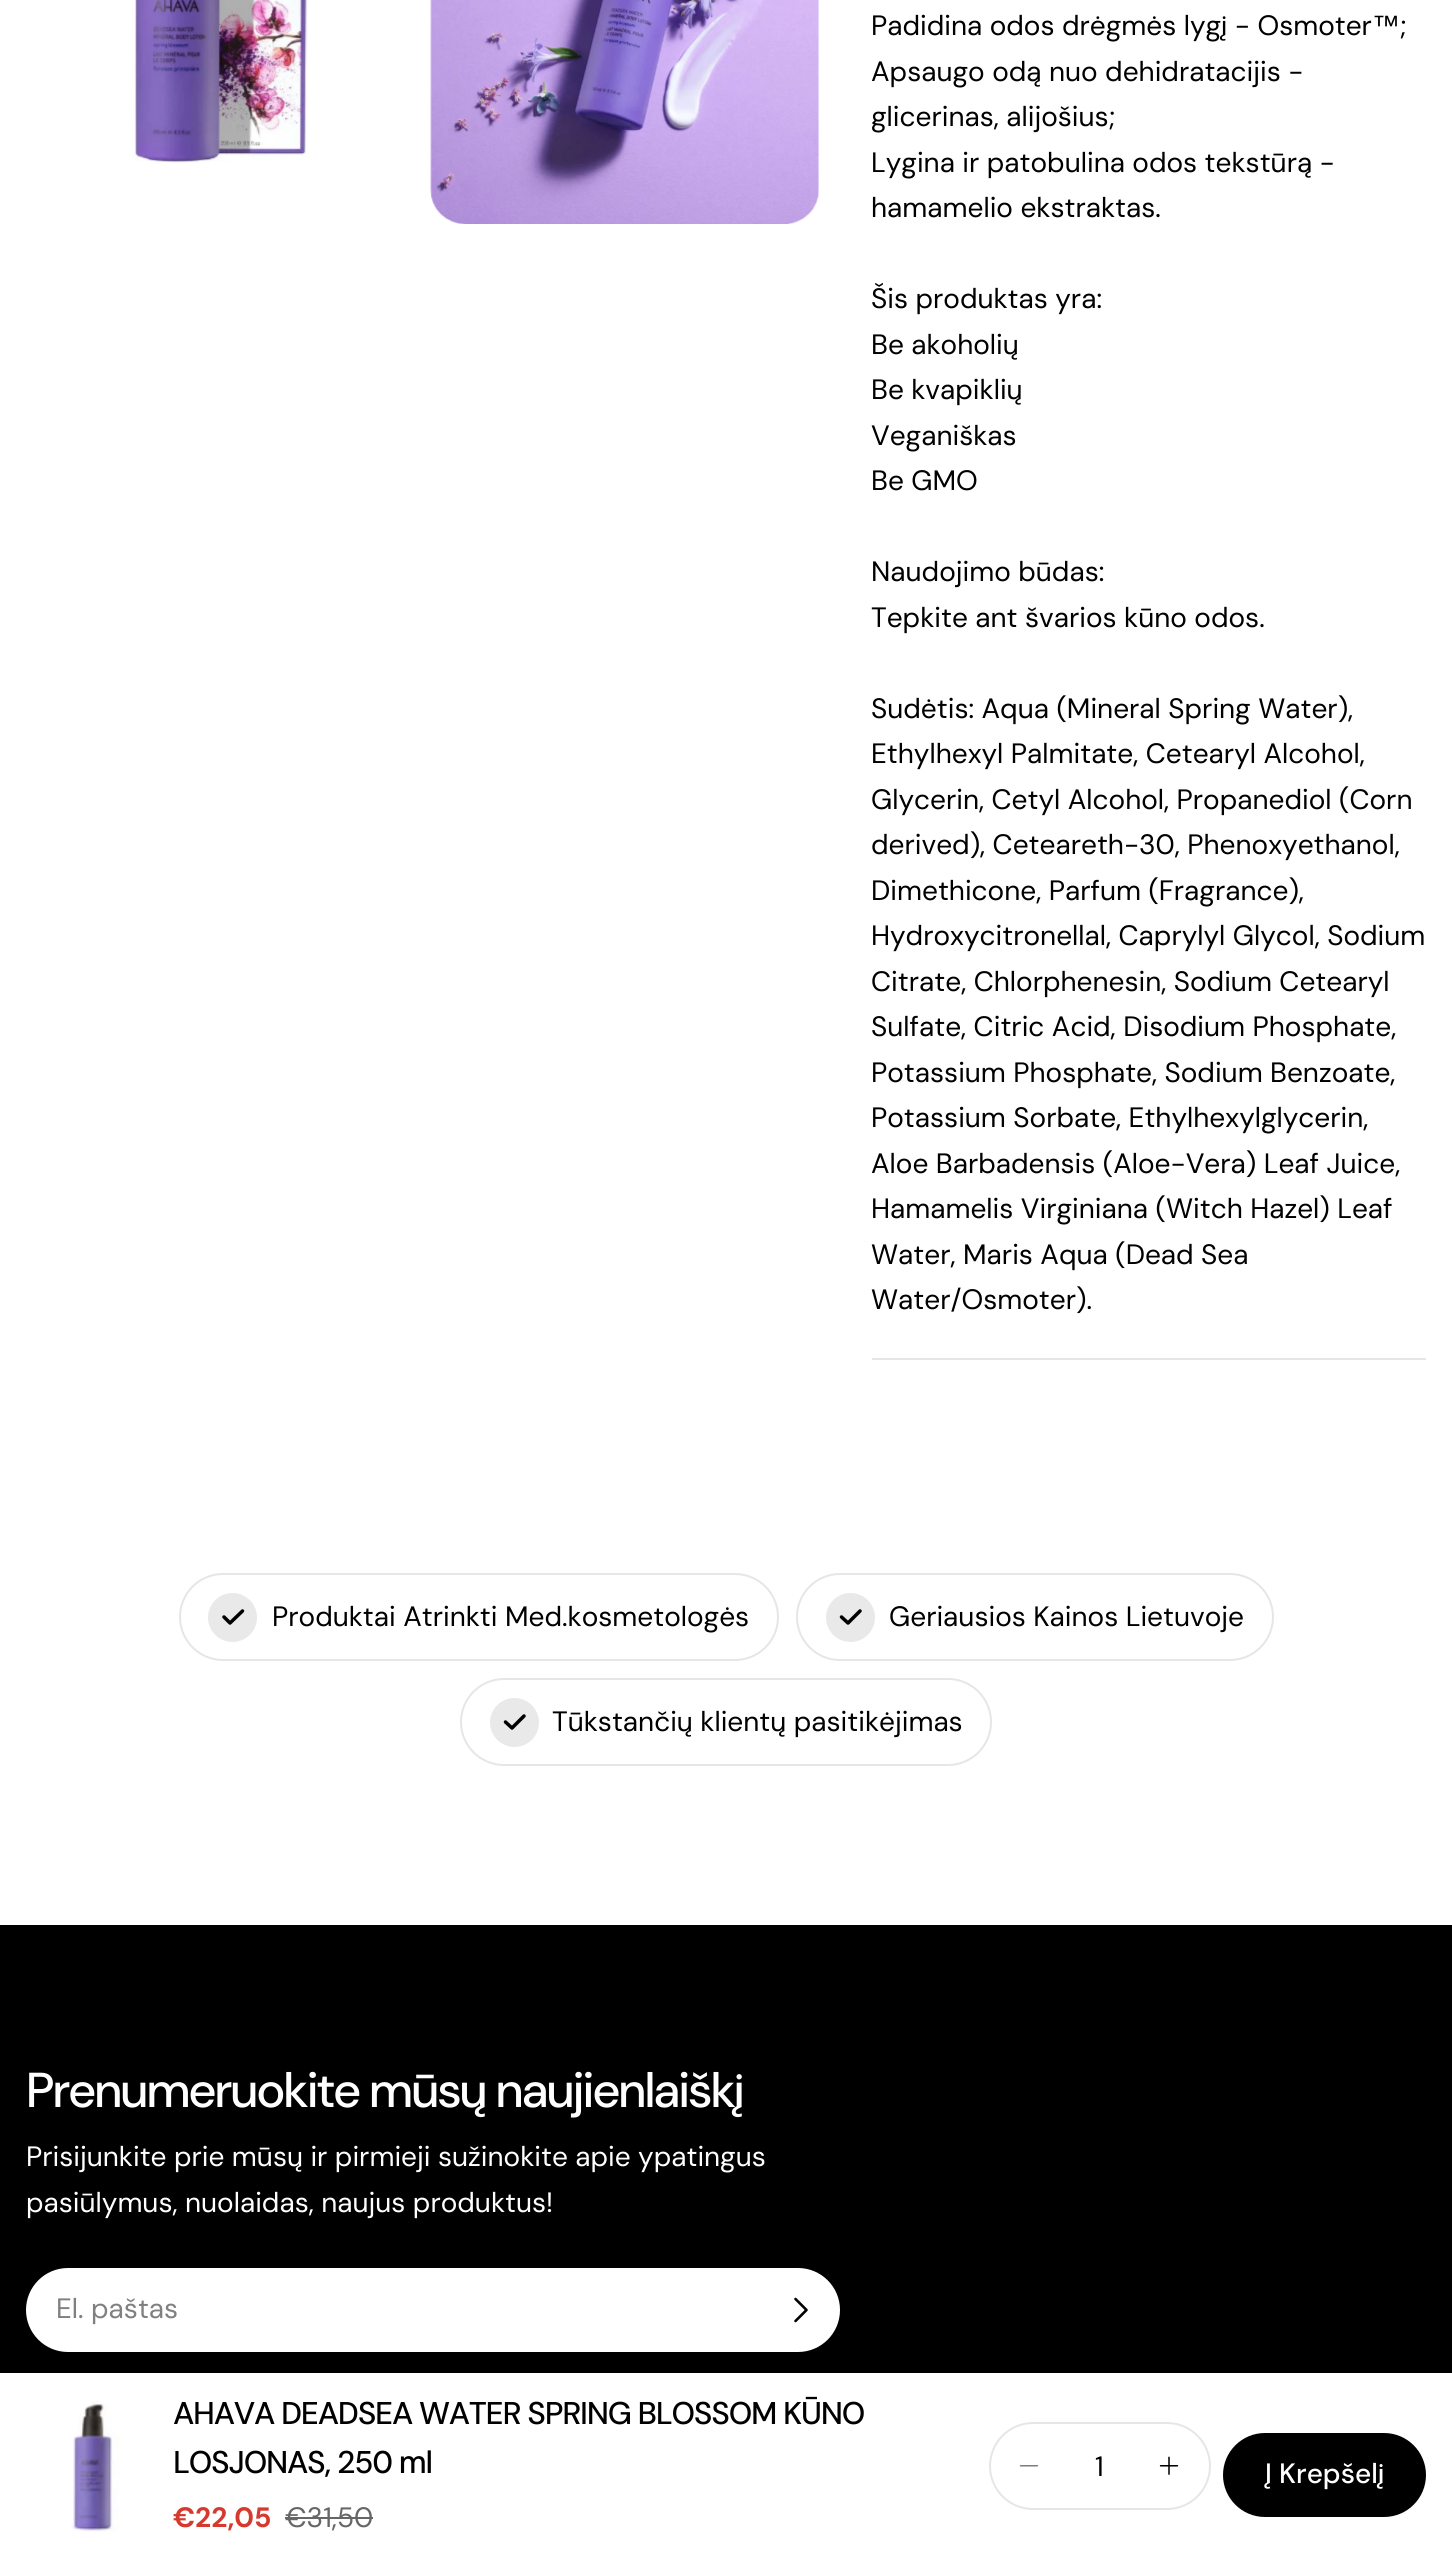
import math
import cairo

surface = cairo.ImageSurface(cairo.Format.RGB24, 1452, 2557)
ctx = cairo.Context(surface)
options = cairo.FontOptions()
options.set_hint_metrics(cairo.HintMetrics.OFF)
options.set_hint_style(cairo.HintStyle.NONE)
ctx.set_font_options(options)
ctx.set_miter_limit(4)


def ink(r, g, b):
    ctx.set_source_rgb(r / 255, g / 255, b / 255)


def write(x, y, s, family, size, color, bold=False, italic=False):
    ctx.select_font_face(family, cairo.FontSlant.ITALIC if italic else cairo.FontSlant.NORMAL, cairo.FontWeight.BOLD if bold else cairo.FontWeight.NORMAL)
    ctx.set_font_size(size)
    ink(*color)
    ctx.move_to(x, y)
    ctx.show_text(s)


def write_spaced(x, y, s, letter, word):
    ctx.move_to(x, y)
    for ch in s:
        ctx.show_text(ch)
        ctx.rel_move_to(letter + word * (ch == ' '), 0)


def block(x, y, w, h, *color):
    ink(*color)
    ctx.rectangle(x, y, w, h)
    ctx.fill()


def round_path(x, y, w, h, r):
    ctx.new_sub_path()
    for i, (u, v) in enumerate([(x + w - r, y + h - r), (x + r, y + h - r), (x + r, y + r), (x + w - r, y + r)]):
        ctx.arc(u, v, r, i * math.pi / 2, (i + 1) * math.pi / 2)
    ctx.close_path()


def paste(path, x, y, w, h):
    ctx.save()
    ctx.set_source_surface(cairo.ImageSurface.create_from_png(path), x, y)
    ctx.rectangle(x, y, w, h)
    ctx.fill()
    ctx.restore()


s1 = dict(family="DM Sans", size=28, color=(0, 0, 0))
s2 = dict(family="Liberation Sans", size=28, color=(0, 0, 0))
s3 = dict(family="DM Sans", size=28, color=(255, 255, 255))
s4 = dict(family="DM Sans", size=28, color=(128, 128, 128))
s5 = dict(family="DM Sans", size=28, color=(214, 58, 47), bold=True)
s6 = dict(family="DM Sans", size=28, color=(102, 102, 102))
s7 = dict(family="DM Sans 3 Medium", size=28, color=(255, 255, 255))

ink(255, 255, 255)
ctx.paint()
paste("pic1.png", 132, 0, 176, 164)
paste("pic2.png", 430, 0, 389, 224)
block(872, 1358, 554, 2, 230, 230, 230)
write(871, 35, "Padidina odos drėgmės lygį - Osmoter", **s1)
write(1372, 35, "™", **s2)
write(1400, 35, ";", **s1)
write(871, 81, "Apsaugo odą nuo dehidratacijis -", **s1)
write(871, 126, "glicerinas, alijošius;", **s1)
write(871, 172, "Lygina ir patobulina odos tekstūrą -", **s1)
write(871, 217, "hamamelio ekstraktas.", **s1)
write(871, 308, "Šis produktas yra:", **s1)
write(871, 354, "Be akoholių", **s1)
write(871, 399, "Be kvapiklių", **s1)
write(871, 445, "Veganiškas", **s1)
write(871, 490, "Be GMO", **s1)
write(871, 581, "Naudojimo būdas:", **s1)
write(871, 627, "Tepkite ant švarios kūno odos.", **s1)
write(871, 718, "Sudėtis: Aqua (Mineral Spring Water),", **s1)
write(871, 763, "Ethylhexyl Palmitate, Cetearyl Alcohol,", **s1)
write(871, 809, "Glycerin, Cetyl Alcohol, Propanediol (Corn", **s1)
write(871, 854, "derived), Ceteareth-30, Phenoxyethanol,", **s1)
write(871, 900, "Dimethicone, Parfum (Fragrance),", **s1)
write(871, 945, "Hydroxycitronellal, Caprylyl Glycol, Sodium", **s1)
write(871, 991, "Citrate, Chlorphenesin, Sodium Cetearyl", **s1)
write(871, 1036, "Sulfate, Citric Acid, Disodium Phosphate,", **s1)
write(871, 1082, "Potassium Phosphate, Sodium Benzoate,", **s1)
write(871, 1127, "Potassium Sorbate, Ethylhexylglycerin,", **s1)
write(871, 1173, "Aloe Barbadensis (Aloe-Vera) Leaf Juice,", **s1)
write(871, 1218, "Hamamelis Virginiana (Witch Hazel) Leaf", **s1)
write(871, 1264, "Water, Maris Aqua (Dead Sea", **s1)
write(871, 1309, "Water/Osmoter).", **s1)
round_path(180, 1574, 598, 86, 43)
ink(230, 230, 230)
ctx.stroke()
ink(233, 233, 233)
ctx.arc(232.5, 1617.5, 24.5, 0, 2 * math.pi)
ctx.fill()
ctx.new_path()
ctx.move_to(242.5, 1611)
ctx.line_to(230, 1623)
ctx.line_to(224, 1617)
ink(0, 0, 0)
ctx.set_line_width(3.5)
ctx.set_line_cap(cairo.LineCap.ROUND)
ctx.set_line_join(cairo.LineJoin.ROUND)
ctx.stroke()
write(272, 1626, "Produktai Atrinkti Med.kosmetologės", **s1)
round_path(797, 1574, 476, 86, 43)
ink(230, 230, 230)
ctx.set_line_width(2)
ctx.set_line_cap(cairo.LineCap.BUTT)
ctx.set_line_join(cairo.LineJoin.MITER)
ctx.stroke()
ink(233, 233, 233)
ctx.arc(850.5, 1617.5, 24.5, 0, 2 * math.pi)
ctx.fill()
ctx.new_path()
ctx.move_to(860, 1611)
ctx.line_to(848, 1623)
ctx.line_to(841.5, 1617)
ink(0, 0, 0)
ctx.set_line_width(3.5)
ctx.set_line_cap(cairo.LineCap.ROUND)
ctx.set_line_join(cairo.LineJoin.ROUND)
ctx.stroke()
write(889, 1626, "Geriausios Kainos Lietuvoje", **s1)
round_path(461, 1679, 530, 86, 43)
ink(230, 230, 230)
ctx.set_line_width(2)
ctx.set_line_cap(cairo.LineCap.BUTT)
ctx.set_line_join(cairo.LineJoin.MITER)
ctx.stroke()
ink(233, 233, 233)
ctx.arc(514.5, 1722.5, 24.5, 0, 2 * math.pi)
ctx.fill()
ctx.new_path()
ctx.move_to(524, 1716)
ctx.line_to(512, 1728)
ctx.line_to(505.5, 1722)
ink(0, 0, 0)
ctx.set_line_width(3.5)
ctx.set_line_cap(cairo.LineCap.ROUND)
ctx.set_line_join(cairo.LineJoin.ROUND)
ctx.stroke()
write(552, 1731, "Tūkstančių klientų pasitikėjimas", **s1)
block(0, 1925, 1452, 448, 0, 0, 0)
ctx.select_font_face("DM Sans Medium")
ctx.set_font_size(49)
ink(255, 255, 255)
write_spaced(26, 2107, "Prenumeruokite mūsų naujienlaiškį", -1.95, 0)
write(26, 2166, "Prisijunkite prie mūsų ir pirmieji sužinokite apie ypatingus", **s3)
write(26, 2212, "pasiūlymus, nuolaidas, naujus produktus!", **s3)
round_path(27, 2269, 812, 82, 41)
ctx.fill_preserve()
ctx.set_line_width(2)
ctx.set_line_cap(cairo.LineCap.BUTT)
ctx.set_line_join(cairo.LineJoin.MITER)
ctx.stroke()
write(56, 2318, "El. paštas", **s4)
ctx.new_path()
ctx.move_to(795.5, 2299)
ctx.line_to(806.5, 2310)
ctx.line_to(795.5, 2321)
ink(0, 0, 0)
ctx.set_line_width(2.6)
ctx.set_line_cap(cairo.LineCap.ROUND)
ctx.set_line_join(cairo.LineJoin.ROUND)
ctx.stroke()
paste("pic3.png", 71, 2401, 50, 131)
ctx.select_font_face("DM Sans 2 Medium")
ctx.set_font_size(31.4)
write_spaced(173, 2424, "AHAVA DEADSEA WATER SPRING BLOSSOM KŪNO", -1.25, 0)
write_spaced(173, 2473, "LOSJONAS, 250 ml", -1.25, 0)
write(173, 2527, "€22,05", **s5)
write(285, 2527, "€31,50", **s6)
block(285, 2517, 88, 2, 102, 102, 102)
round_path(990, 2423, 220, 86, 43)
ink(230, 230, 230)
ctx.set_line_width(2)
ctx.set_line_cap(cairo.LineCap.BUTT)
ctx.set_line_join(cairo.LineJoin.MITER)
ctx.stroke()
paste("pic4.png", 1019, 2465, 20, 2)
write(1095, 2476, "1", **s1)
paste("pic5.png", 1159, 2456, 20, 19)
round_path(1223, 2433, 203, 84, 42)
ctx.fill()
write(1265, 2483, "Į Krepšelį", **s7)
surface.write_to_png("screenshot.png")
